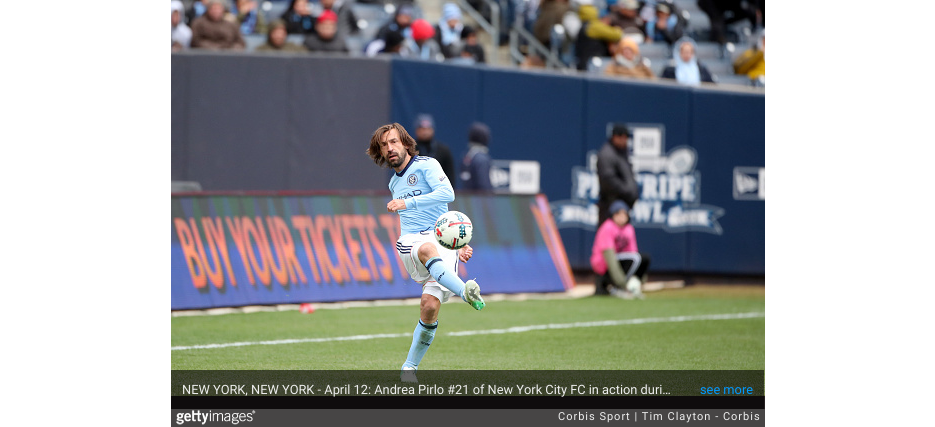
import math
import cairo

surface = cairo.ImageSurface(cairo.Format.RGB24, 935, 427)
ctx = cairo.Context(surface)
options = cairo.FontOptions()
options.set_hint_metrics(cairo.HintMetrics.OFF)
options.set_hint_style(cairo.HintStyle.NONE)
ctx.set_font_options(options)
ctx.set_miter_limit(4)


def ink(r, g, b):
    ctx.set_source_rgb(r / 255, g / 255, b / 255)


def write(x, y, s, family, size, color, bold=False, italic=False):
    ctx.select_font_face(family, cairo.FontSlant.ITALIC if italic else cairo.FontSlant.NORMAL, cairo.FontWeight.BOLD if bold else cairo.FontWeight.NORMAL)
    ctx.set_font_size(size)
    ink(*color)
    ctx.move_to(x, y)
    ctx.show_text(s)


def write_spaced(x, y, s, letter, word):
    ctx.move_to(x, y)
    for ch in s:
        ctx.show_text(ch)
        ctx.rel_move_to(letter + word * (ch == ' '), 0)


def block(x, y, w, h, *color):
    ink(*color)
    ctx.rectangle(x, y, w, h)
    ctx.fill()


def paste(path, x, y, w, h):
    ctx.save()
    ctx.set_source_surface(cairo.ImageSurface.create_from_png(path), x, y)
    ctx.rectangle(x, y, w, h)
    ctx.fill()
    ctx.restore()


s1 = dict(family="Roboto", size=12.8, color=(238, 238, 238))
s2 = dict(family="Roboto", size=12.8, color=(0, 153, 255))

ink(255, 255, 255)
ctx.paint()
block(171, 396, 594, 13, 37, 31, 32)
paste("pic1.png", 171, 0, 594, 396)
ctx.set_source_rgba(0, 0, 0, 0.6)
ctx.rectangle(171, 370, 593, 39)
ctx.fill()
write(182, 394, "NEW YORK, NEW YORK - April 12: Andrea Pirlo #21 of New York City FC in action duri…", **s1)
write(700, 394, "see more", **s2)
block(171, 409, 594, 18, 71, 69, 69)
paste("pic2.png", 176, 410, 80, 15)
ctx.set_font_size(11)
ink(238, 238, 238)
write_spaced(558, 420, "Corbis Sport | Tim Clayton - Corbis", 1, 0)
surface.write_to_png("screenshot.png")
